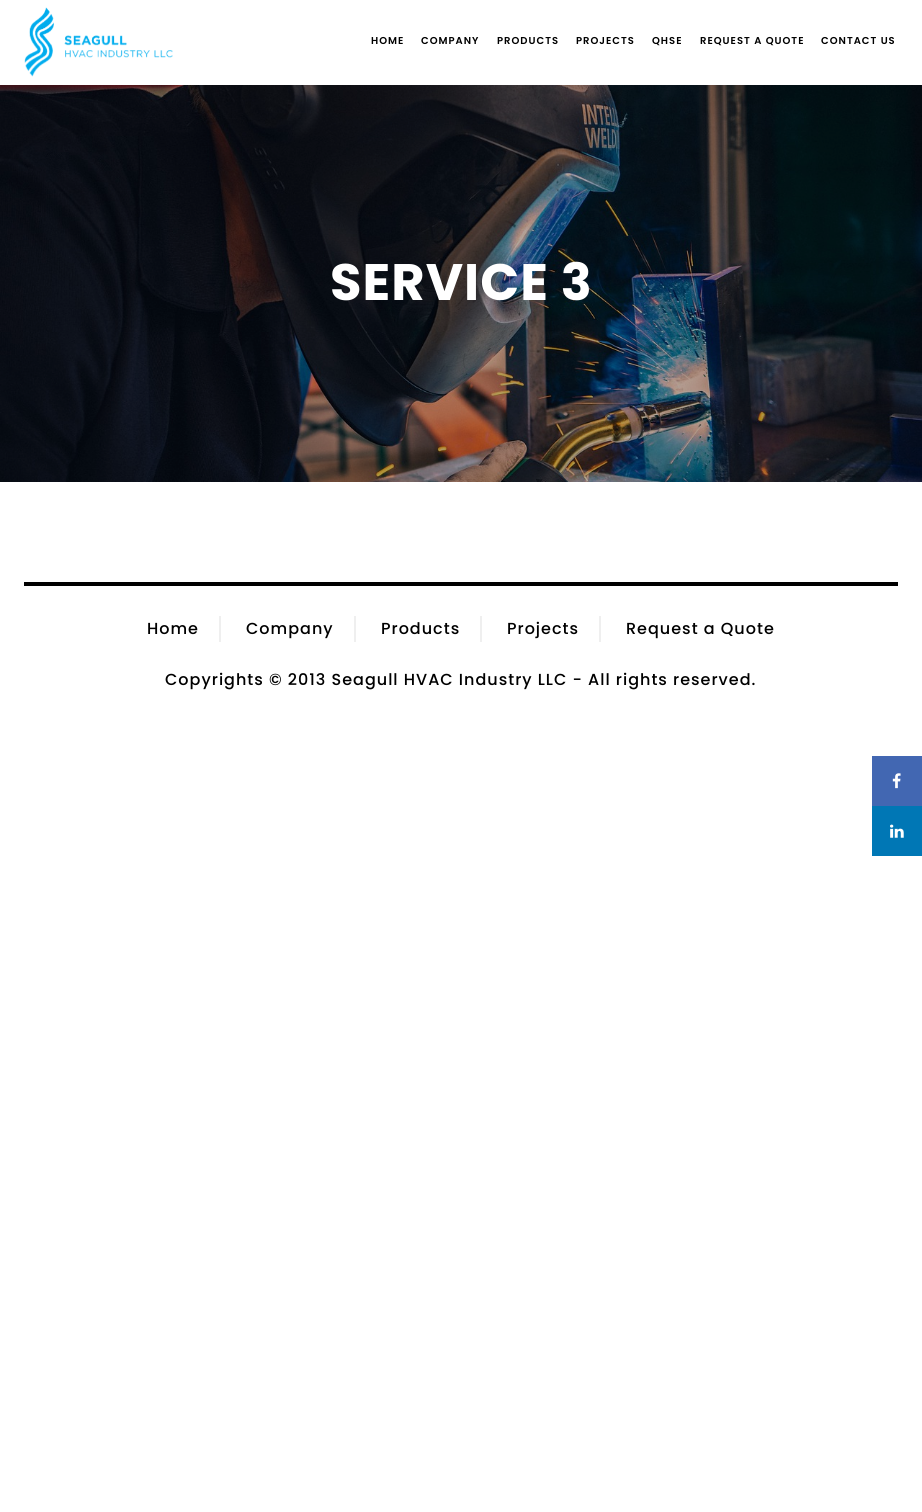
import math
import cairo

surface = cairo.ImageSurface(cairo.Format.RGB24, 922, 1512)
ctx = cairo.Context(surface)
options = cairo.FontOptions()
options.set_hint_metrics(cairo.HintMetrics.OFF)
options.set_hint_style(cairo.HintStyle.NONE)
ctx.set_font_options(options)
ctx.set_miter_limit(4)


def ink(r, g, b):
    ctx.set_source_rgb(r / 255, g / 255, b / 255)


def write_spaced(x, y, s, letter, word):
    ctx.move_to(x, y)
    for ch in s:
        ctx.show_text(ch)
        ctx.rel_move_to(letter + word * (ch == ' '), 0)


def block(x, y, w, h, *color):
    ink(*color)
    ctx.rectangle(x, y, w, h)
    ctx.fill()


def paste(path, x, y, w, h):
    ctx.save()
    ctx.set_source_surface(cairo.ImageSurface.create_from_png(path), x, y)
    ctx.rectangle(x, y, w, h)
    ctx.fill()
    ctx.restore()


ink(255, 255, 255)
ctx.paint()
paste("pic1.png", 24, 7, 149, 70)
ctx.select_font_face("Poppins SemiBold")
ctx.set_font_size(10)
ink(0, 0, 0)
write_spaced(371, 44, "HOME", 1, 0)
write_spaced(421, 44, "COMPANY", 1, 0)
write_spaced(497, 44, "PRODUCTS", 1, 0)
write_spaced(576, 44, "PROJECTS", 1, 0)
write_spaced(652, 44, "QHSE", 1, 0)
write_spaced(700, 44, "REQUEST A QUOTE", 1, 0)
write_spaced(821, 44, "CONTACT US", 1, 0)
paste("pic2.png", 0, 85, 922, 397)
ctx.select_font_face("Poppins", cairo.FontSlant.NORMAL, cairo.FontWeight.BOLD)
ctx.set_font_size(51.25)
ink(255, 255, 255)
write_spaced(330, 300, "SERVICE 3", 1, 0)
block(24, 582, 874, 4, 0, 0, 0)
block(219, 616, 2, 26, 239, 239, 239)
ctx.select_font_face("Poppins Medium")
ctx.set_font_size(16)
ink(0, 0, 0)
write_spaced(147, 634, "Home", 1, 0)
block(354, 616, 2, 26, 239, 239, 239)
ink(0, 0, 0)
write_spaced(246, 634, "Company", 1, 0)
block(480, 616, 2, 26, 239, 239, 239)
ink(0, 0, 0)
write_spaced(381, 634, "Products", 1, 0)
block(599, 616, 2, 26, 239, 239, 239)
ink(0, 0, 0)
write_spaced(507, 634, "Projects", 1, 0)
write_spaced(626, 634, "Request a Quote", 1, 0)
write_spaced(165, 685, "Copyrights © 2013 Seagull HVAC Industry LLC - All rights reserved.", 1, 0)
block(872, 756, 50, 50, 66, 103, 178)
paste("pic3.png", 892, 773, 9, 16)
block(872, 806, 50, 50, 0, 119, 181)
paste("pic4.png", 890, 824, 14, 14)
surface.write_to_png("screenshot.png")
